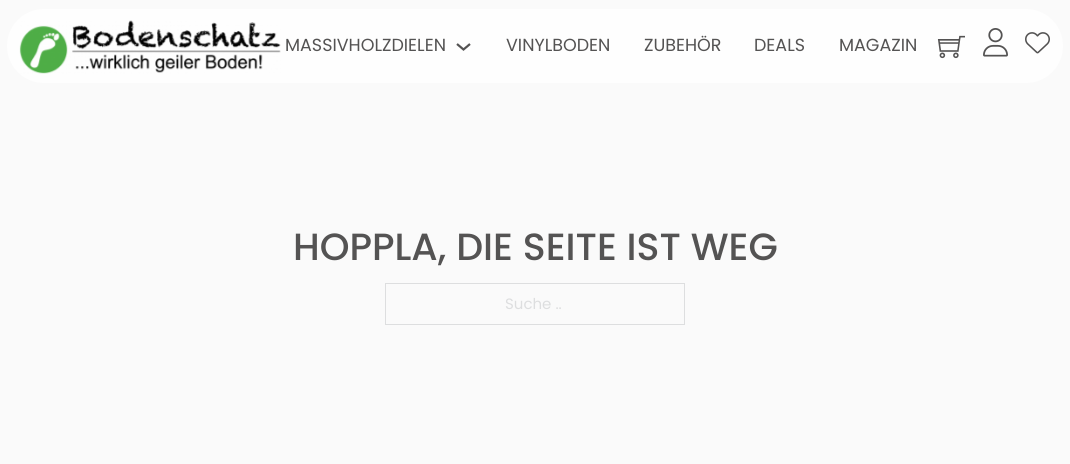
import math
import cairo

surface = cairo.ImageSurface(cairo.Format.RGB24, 1070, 464)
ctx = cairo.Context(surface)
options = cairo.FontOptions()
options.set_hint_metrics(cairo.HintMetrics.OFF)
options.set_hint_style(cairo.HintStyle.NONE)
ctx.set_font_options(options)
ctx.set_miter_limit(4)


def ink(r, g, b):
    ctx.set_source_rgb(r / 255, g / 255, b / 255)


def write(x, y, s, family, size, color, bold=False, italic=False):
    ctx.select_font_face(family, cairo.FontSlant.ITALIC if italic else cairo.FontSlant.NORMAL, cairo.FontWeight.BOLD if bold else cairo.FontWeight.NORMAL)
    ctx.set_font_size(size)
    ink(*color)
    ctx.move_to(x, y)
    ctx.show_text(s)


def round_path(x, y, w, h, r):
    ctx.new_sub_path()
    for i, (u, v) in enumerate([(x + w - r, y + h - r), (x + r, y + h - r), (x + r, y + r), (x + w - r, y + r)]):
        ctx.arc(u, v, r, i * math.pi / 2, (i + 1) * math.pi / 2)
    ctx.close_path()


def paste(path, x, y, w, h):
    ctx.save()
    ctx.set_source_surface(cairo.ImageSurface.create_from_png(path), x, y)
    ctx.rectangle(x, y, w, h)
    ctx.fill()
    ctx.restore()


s1 = dict(family="Poppins", size=17.5, color=(84, 83, 83))
s2 = dict(family="Poppins Medium", size=37.9, color=(84, 83, 83))
s3 = dict(family="Poppins", size=15, color=(221, 222, 223))

ink(250, 250, 250)
ctx.paint()
ink(254, 254, 254)
round_path(7, 9, 1056, 74, 37)
ctx.fill()
paste("pic1.png", 19, 20, 262, 54)
write(285, 51, "MASSIVHOLZDIELEN", **s1)
ctx.new_path()
ctx.move_to(457, 44)
ctx.line_to(463.5, 49.5)
ctx.line_to(470, 44)
ctx.set_line_width(2.2)
ctx.stroke()
write(506, 51, "VINYLBODEN", **s1)
write(644, 51, "ZUBEHÖR", **s1)
write(754, 51, "DEALS", **s1)
write(839, 51, "MAGAZIN", **s1)
paste("pic2.png", 937, 35, 28, 24)
paste("pic3.png", 983, 28, 25, 29)
paste("pic4.png", 1025, 32, 25, 22)
write(293, 260, "HOPPLA, DIE SEITE IST WEG", **s2)
ctx.rectangle(385.5, 283.5, 299, 41)
ink(221, 222, 223)
ctx.set_line_width(1)
ctx.stroke()
write(505, 309, "Suche ..", **s3)
surface.write_to_png("screenshot.png")
